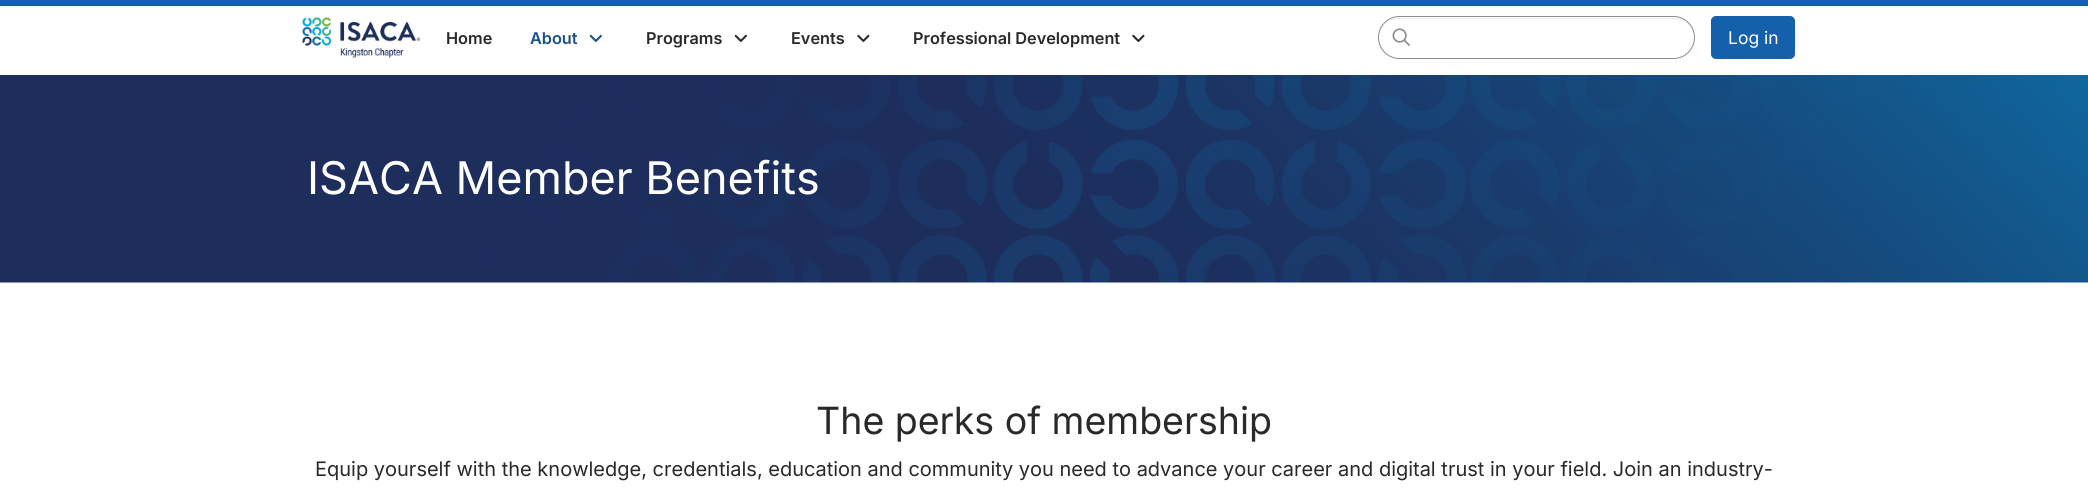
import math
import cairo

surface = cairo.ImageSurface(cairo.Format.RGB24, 2088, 488)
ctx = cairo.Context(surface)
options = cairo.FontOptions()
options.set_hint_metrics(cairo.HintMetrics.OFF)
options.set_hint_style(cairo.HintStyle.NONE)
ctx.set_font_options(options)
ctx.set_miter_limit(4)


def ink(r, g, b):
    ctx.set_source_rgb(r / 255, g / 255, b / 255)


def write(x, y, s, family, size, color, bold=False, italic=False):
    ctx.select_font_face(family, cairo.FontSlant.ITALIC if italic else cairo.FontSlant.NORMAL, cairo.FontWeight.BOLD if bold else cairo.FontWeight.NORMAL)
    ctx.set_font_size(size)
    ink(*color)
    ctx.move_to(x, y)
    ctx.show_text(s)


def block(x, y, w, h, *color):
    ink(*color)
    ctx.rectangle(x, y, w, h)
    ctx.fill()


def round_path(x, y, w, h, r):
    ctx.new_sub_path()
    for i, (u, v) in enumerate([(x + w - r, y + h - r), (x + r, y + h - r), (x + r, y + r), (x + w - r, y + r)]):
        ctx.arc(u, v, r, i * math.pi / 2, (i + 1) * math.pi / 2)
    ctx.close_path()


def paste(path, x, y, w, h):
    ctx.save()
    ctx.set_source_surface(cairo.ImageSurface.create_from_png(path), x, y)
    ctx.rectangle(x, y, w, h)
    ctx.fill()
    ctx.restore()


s1 = dict(family="Inter SemiBold", size=16.25, color=(41, 41, 41))
s2 = dict(family="Inter SemiBold", size=16.25, color=(25, 82, 138))
s3 = dict(family="Inter", size=17.5, color=(255, 255, 255))
s4 = dict(family="Inter", size=45, color=(255, 255, 255))
s5 = dict(family="Inter", size=37.5, color=(41, 41, 41))
s6 = dict(family="Inter", size=20, color=(41, 41, 41))

ink(255, 255, 255)
ctx.paint()
block(0, 0, 2088, 6, 20, 96, 170)
paste("pic1.png", 302, 17, 118, 41)
write(446, 44, "Home", **s1)
write(530, 44, "About", **s2)
paste("pic2.png", 589, 34, 13, 8)
write(646, 44, "Programs", **s1)
paste("pic3.png", 734, 34, 13, 8)
write(791, 44, "Events", **s1)
paste("pic4.png", 857, 34, 13, 8)
write(913, 44, "Professional Development", **s1)
paste("pic4.png", 1132, 34, 13, 8)
ink(236, 236, 236)
ctx.new_path()
ctx.move_to(1399, 19)
ctx.line_to(1674, 19)
ctx.curve_to(1685, 19, 1694, 28, 1694, 39)
ctx.curve_to(1694, 27, 1685, 18, 1674, 18)
ctx.line_to(1399, 18)
ctx.curve_to(1388, 18, 1379, 27, 1379, 39)
ctx.curve_to(1379, 28, 1388, 19, 1399, 19)
ctx.close_path()
ctx.fill()
round_path(1378.5, 16.5, 316, 42, 21)
ink(140, 140, 140)
ctx.set_line_width(1)
ctx.stroke()
paste("pic5.png", 1392, 28, 18, 18)
ink(20, 96, 170)
round_path(1711.5, 16.5, 83, 42, 4.5)
ctx.fill_preserve()
ctx.stroke()
write(1728, 44, "Log in", **s3)
paste("pic6.png", 0, 75, 2088, 208)
write(307, 194, "ISACA Member Benefits", **s4)
write(816, 434, "The perks of membership", **s5)
write(315, 476, "Equip yourself with the knowledge, credentials, education and community you need to advance your career and digital trust in your field. Join an industry-", **s6)
surface.write_to_png("screenshot.png")
